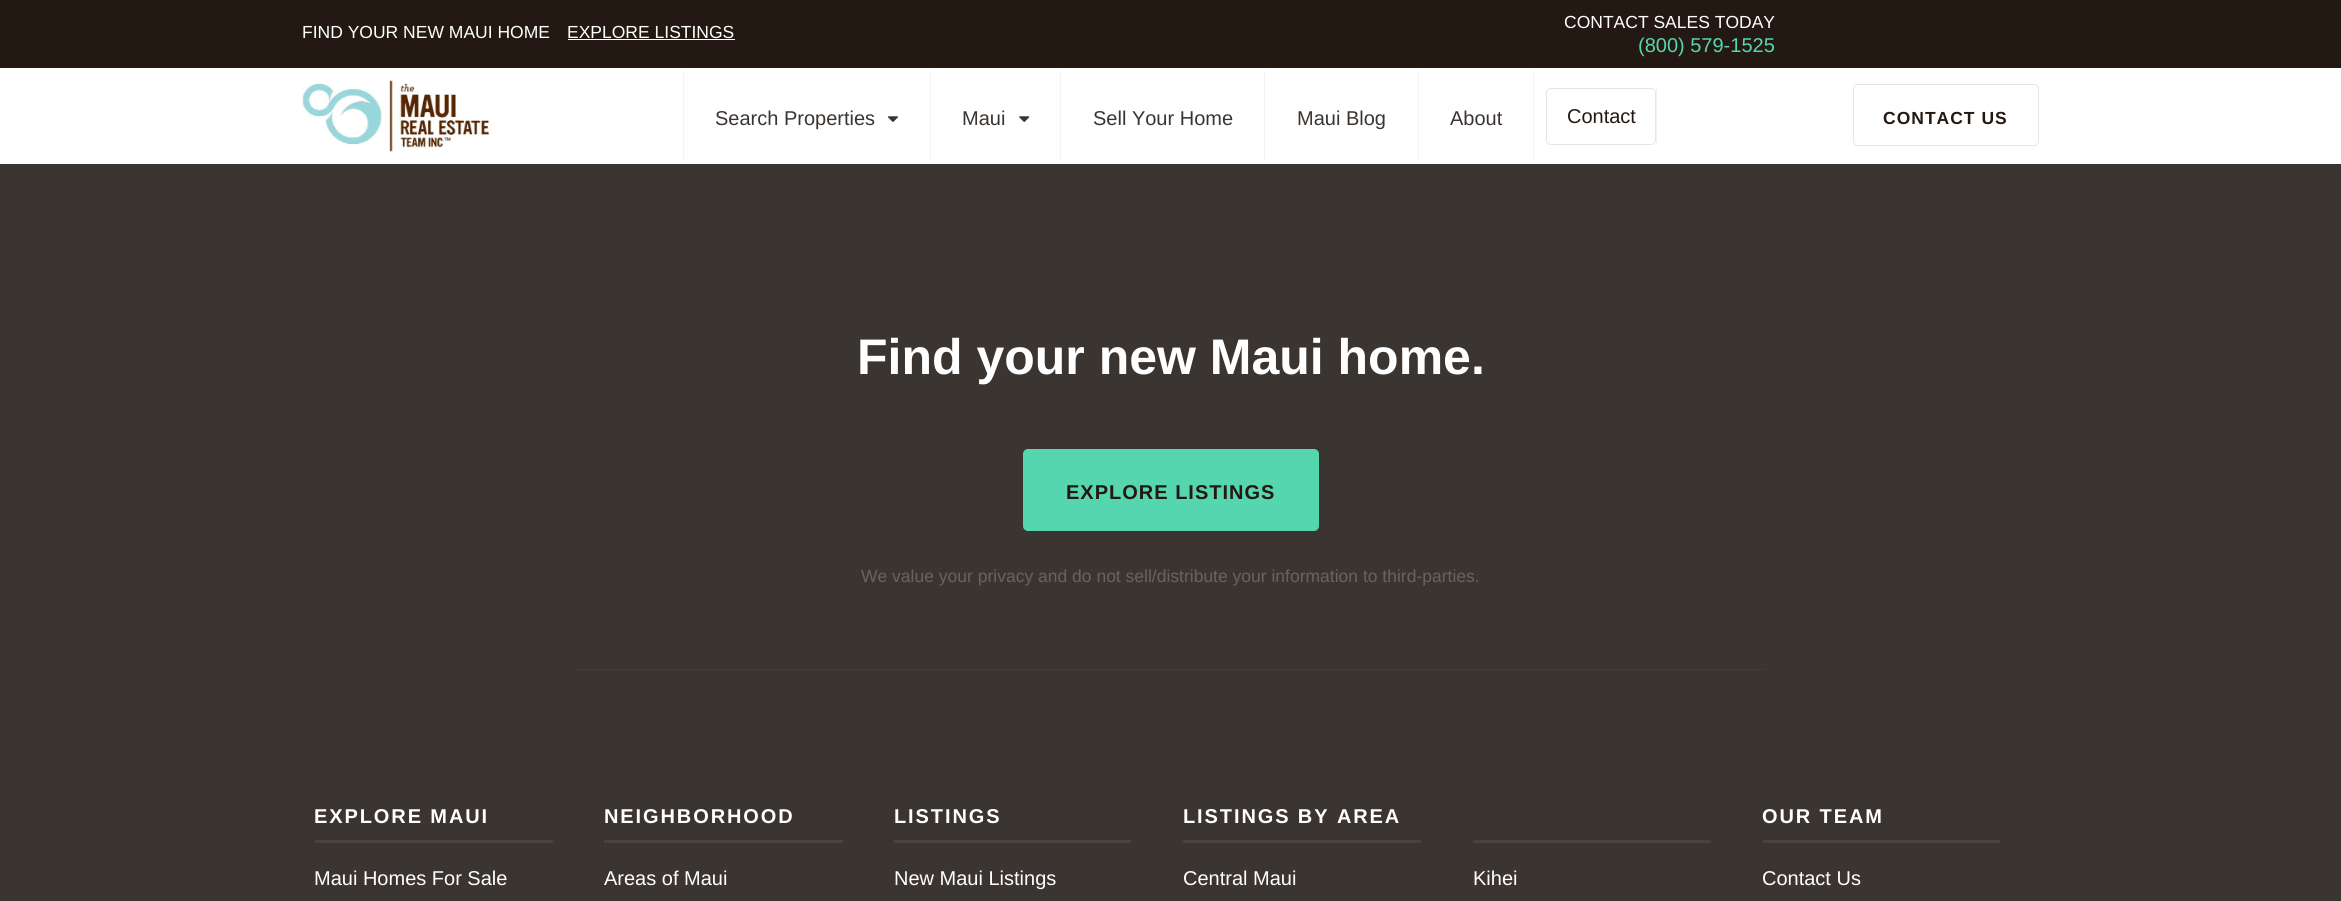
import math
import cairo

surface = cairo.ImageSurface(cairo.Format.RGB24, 2341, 901)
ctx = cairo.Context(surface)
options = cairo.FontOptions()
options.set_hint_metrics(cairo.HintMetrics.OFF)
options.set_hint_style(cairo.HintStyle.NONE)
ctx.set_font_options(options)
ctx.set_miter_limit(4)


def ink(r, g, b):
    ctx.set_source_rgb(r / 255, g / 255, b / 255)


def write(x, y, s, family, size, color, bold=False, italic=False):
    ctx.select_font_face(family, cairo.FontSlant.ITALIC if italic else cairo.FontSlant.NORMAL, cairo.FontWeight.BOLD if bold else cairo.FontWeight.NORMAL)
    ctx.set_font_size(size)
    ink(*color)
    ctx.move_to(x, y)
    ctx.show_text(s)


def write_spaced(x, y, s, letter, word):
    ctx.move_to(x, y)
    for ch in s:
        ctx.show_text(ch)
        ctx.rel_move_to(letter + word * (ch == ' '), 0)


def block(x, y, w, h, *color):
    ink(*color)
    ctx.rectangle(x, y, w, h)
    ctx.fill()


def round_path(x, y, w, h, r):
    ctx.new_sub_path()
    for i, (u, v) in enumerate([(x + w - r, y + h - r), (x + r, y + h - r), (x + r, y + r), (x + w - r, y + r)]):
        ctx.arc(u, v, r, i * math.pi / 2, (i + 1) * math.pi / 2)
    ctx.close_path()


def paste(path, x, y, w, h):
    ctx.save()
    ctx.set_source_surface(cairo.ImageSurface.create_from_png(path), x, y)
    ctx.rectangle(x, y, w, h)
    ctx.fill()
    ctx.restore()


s1 = dict(family="Liberation Sans", size=17.5, color=(255, 255, 255))
s2 = dict(family="Liberation Sans", size=20, color=(86, 214, 175))
s3 = dict(family="Liberation Sans", size=20, color=(59, 53, 49))
s4 = dict(family="Liberation Sans", size=20, color=(35, 25, 18))
s5 = dict(family="Liberation Sans", size=50, color=(255, 255, 255), bold=True)
s6 = dict(family="Liberation Sans", size=17.5, color=(104, 99, 96))
s7 = dict(family="Liberation Sans", size=20, color=(255, 255, 255))

ink(255, 255, 255)
ctx.paint()
block(0, 0, 2341, 68, 35, 25, 18)
write(302, 38, "FIND YOUR NEW MAUI HOME", **s1)
write(567, 38, "EXPLORE LISTINGS", **s1)
block(568, 39, 167, 1, 255, 255, 255)
write(1564, 28, "CONTACT SALES TODAY", **s1)
write(1638, 52, "(800) 579-1525", **s2)
paste("pic1.png", 302, 80, 187, 72)
block(930, 70, 1, 90, 239, 247, 250)
block(683, 70, 1, 90, 239, 247, 250)
write(715, 125, "Search Properties", **s3)
paste("pic2.png", 887, 116, 11, 6)
block(1060, 70, 1, 90, 239, 247, 250)
write(962, 125, "Maui", **s3)
paste("pic3.png", 1019, 116, 11, 6)
block(1264, 70, 1, 90, 239, 247, 250)
write(1093, 125, "Sell Your Home", **s3)
block(1418, 70, 1, 90, 239, 247, 250)
write(1297, 125, "Maui Blog", **s3)
block(1533, 70, 1, 90, 239, 247, 250)
write(1450, 125, "About", **s3)
block(1656, 88, 1, 56, 239, 247, 250)
round_path(1546.5, 88.5, 109, 56, 4.5)
ink(222, 232, 236)
ctx.set_line_width(1)
ctx.stroke()
write(1567, 123, "Contact", **s4)
round_path(1853.5, 84.5, 185, 61, 4.5)
ink(222, 232, 236)
ctx.stroke()
ctx.select_font_face("Liberation Sans", cairo.FontSlant.NORMAL, cairo.FontWeight.BOLD)
ctx.set_font_size(17.5)
ink(35, 25, 18)
write_spaced(1883, 124, "CONTACT US", 1, 0)
block(0, 164, 2341, 737, 59, 53, 49)
write(857, 374, "Find your new Maui home.", **s5)
ink(86, 214, 175)
round_path(1023, 449, 296, 82, 5)
ctx.fill()
ctx.set_font_size(20)
ink(35, 25, 18)
write_spaced(1066, 499, "EXPLORE LISTINGS", 1, 0)
write(861, 582, "We value your privacy and do not sell/distribute your information to third-parties.", **s6)
block(578, 669, 1187, 1, 69, 63, 59)
block(315, 840, 238, 3, 73, 67, 63)
ctx.select_font_face("Liberation Sans", cairo.FontSlant.NORMAL, cairo.FontWeight.BOLD)
ctx.set_font_size(20)
ink(255, 255, 255)
write_spaced(314, 823, "EXPLORE MAUI", 1.9, 0)
write(314, 885, "Maui Homes For Sale", **s7)
block(604, 840, 239, 3, 73, 67, 63)
ctx.select_font_face("Liberation Sans", cairo.FontSlant.NORMAL, cairo.FontWeight.BOLD)
ink(255, 255, 255)
write_spaced(604, 823, "NEIGHBORHOOD", 1.9, 0)
write(604, 885, "Areas of Maui", **s7)
block(894, 840, 237, 3, 73, 67, 63)
ctx.select_font_face("Liberation Sans", cairo.FontSlant.NORMAL, cairo.FontWeight.BOLD)
ink(255, 255, 255)
write_spaced(894, 823, "LISTINGS", 1.9, 0)
write(894, 885, "New Maui Listings", **s7)
block(1183, 840, 238, 3, 73, 67, 63)
ctx.select_font_face("Liberation Sans", cairo.FontSlant.NORMAL, cairo.FontWeight.BOLD)
ink(255, 255, 255)
write_spaced(1183, 823, "LISTINGS BY AREA", 1.9, 0)
write(1183, 885, "Central Maui", **s7)
block(1473, 840, 238, 3, 73, 67, 63)
write(1473, 885, "Kihei", **s7)
block(1763, 840, 237, 3, 73, 67, 63)
ctx.select_font_face("Liberation Sans", cairo.FontSlant.NORMAL, cairo.FontWeight.BOLD)
ink(255, 255, 255)
write_spaced(1762, 823, "OUR TEAM", 1.9, 0)
write(1762, 885, "Contact Us", **s7)
surface.write_to_png("screenshot.png")
